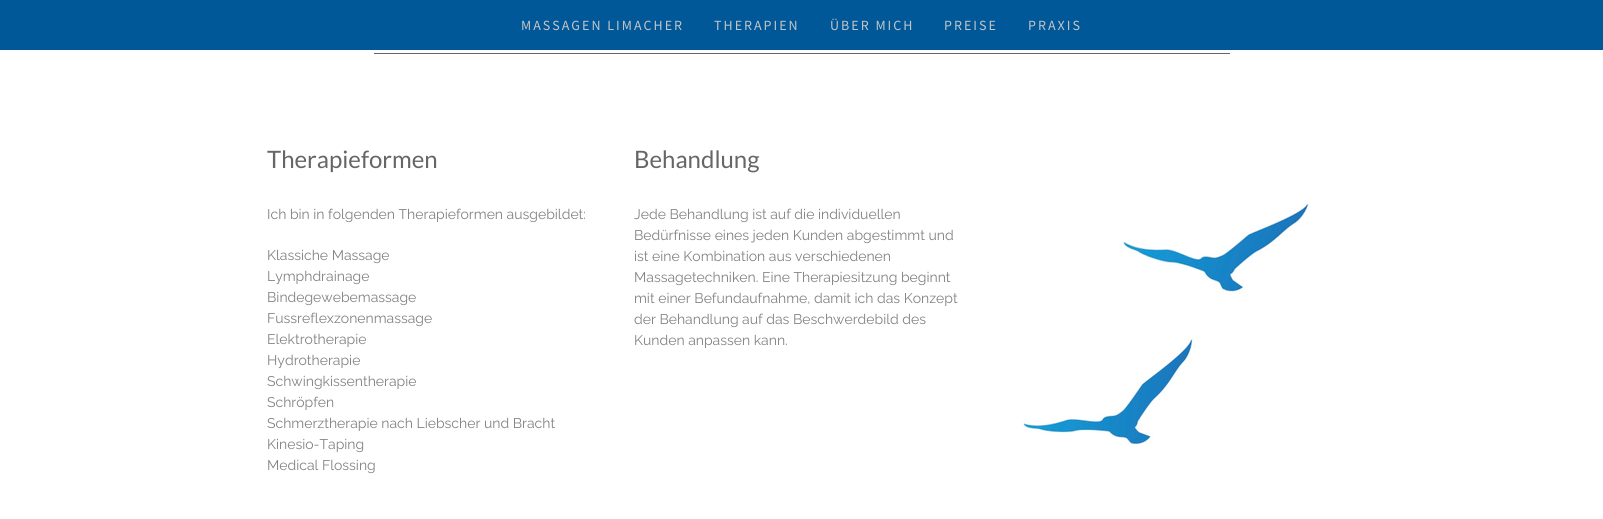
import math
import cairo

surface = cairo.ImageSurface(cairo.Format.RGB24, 1603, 519)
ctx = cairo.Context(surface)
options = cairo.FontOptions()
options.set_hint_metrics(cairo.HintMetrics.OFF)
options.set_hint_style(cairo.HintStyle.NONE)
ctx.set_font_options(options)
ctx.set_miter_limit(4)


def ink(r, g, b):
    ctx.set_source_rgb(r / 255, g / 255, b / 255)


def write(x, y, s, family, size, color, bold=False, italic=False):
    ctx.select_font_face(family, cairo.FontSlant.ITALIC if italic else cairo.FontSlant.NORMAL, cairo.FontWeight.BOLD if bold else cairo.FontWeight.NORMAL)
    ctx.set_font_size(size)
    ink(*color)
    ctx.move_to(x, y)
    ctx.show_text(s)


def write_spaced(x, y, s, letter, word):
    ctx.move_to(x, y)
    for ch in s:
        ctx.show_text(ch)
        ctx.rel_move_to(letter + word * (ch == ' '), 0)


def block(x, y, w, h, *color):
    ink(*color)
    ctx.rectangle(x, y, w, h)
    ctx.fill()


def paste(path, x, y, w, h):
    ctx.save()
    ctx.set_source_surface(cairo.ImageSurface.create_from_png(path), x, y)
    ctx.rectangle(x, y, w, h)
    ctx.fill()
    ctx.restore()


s1 = dict(family="Lato", size=24, color=(102, 102, 102))
s2 = dict(family="Raleway", size=14, color=(130, 130, 130))

ink(255, 255, 255)
ctx.paint()
block(0, 0, 1603, 50, 0, 88, 153)
ctx.select_font_face("Source Sans Pro")
ctx.set_font_size(14)
ink(197, 197, 197)
write_spaced(521, 30, "MASSAGEN LIMACHER", 2, 0)
write_spaced(714, 30, "THERAPIEN", 2, 0)
write_spaced(830, 30, "ÜBER MICH", 2, 0)
write_spaced(944, 30, "PREISE", 2, 0)
write_spaced(1028, 30, "PRAXIS", 2, 0)
block(374, 53, 856, 1, 102, 102, 102)
write(267, 168, "Therapieformen", **s1)
write(267, 219, "Ich bin in folgenden Therapieformen ausgebildet:", **s2)
write(267, 260, "Klassiche Massage", **s2)
write(267, 281, "Lymphdrainage", **s2)
write(267, 302, "Bindegewebemassage", **s2)
write(267, 323, "Fussreflexzonenmassage", **s2)
write(267, 344, "Elektrotherapie", **s2)
write(267, 365, "Hydrotherapie", **s2)
write(267, 386, "Schwingkissentherapie", **s2)
write(267, 407, "Schröpfen", **s2)
write(267, 428, "Schmerztherapie nach Liebscher und Bracht", **s2)
write(267, 449, "Kinesio-Taping", **s2)
write(267, 470, "Medical Flossing", **s2)
write(634, 168, "Behandlung", **s1)
write(634, 219, "Jede Behandlung ist auf die individuellen", **s2)
write(634, 240, "Bedürfnisse eines jeden Kunden abgestimmt und", **s2)
write(634, 261, "ist eine Kombination aus verschiedenen", **s2)
write(634, 282, "Massagetechniken. Eine Therapiesitzung beginnt", **s2)
write(634, 303, "mit einer Befundaufnahme, damit ich das Konzept", **s2)
write(634, 324, "der Behandlung auf das Beschwerdebild des", **s2)
write(634, 345, "Kunden anpassen kann.", **s2)
paste("pic1.png", 1023, 203, 288, 242)
surface.write_to_png("screenshot.png")
